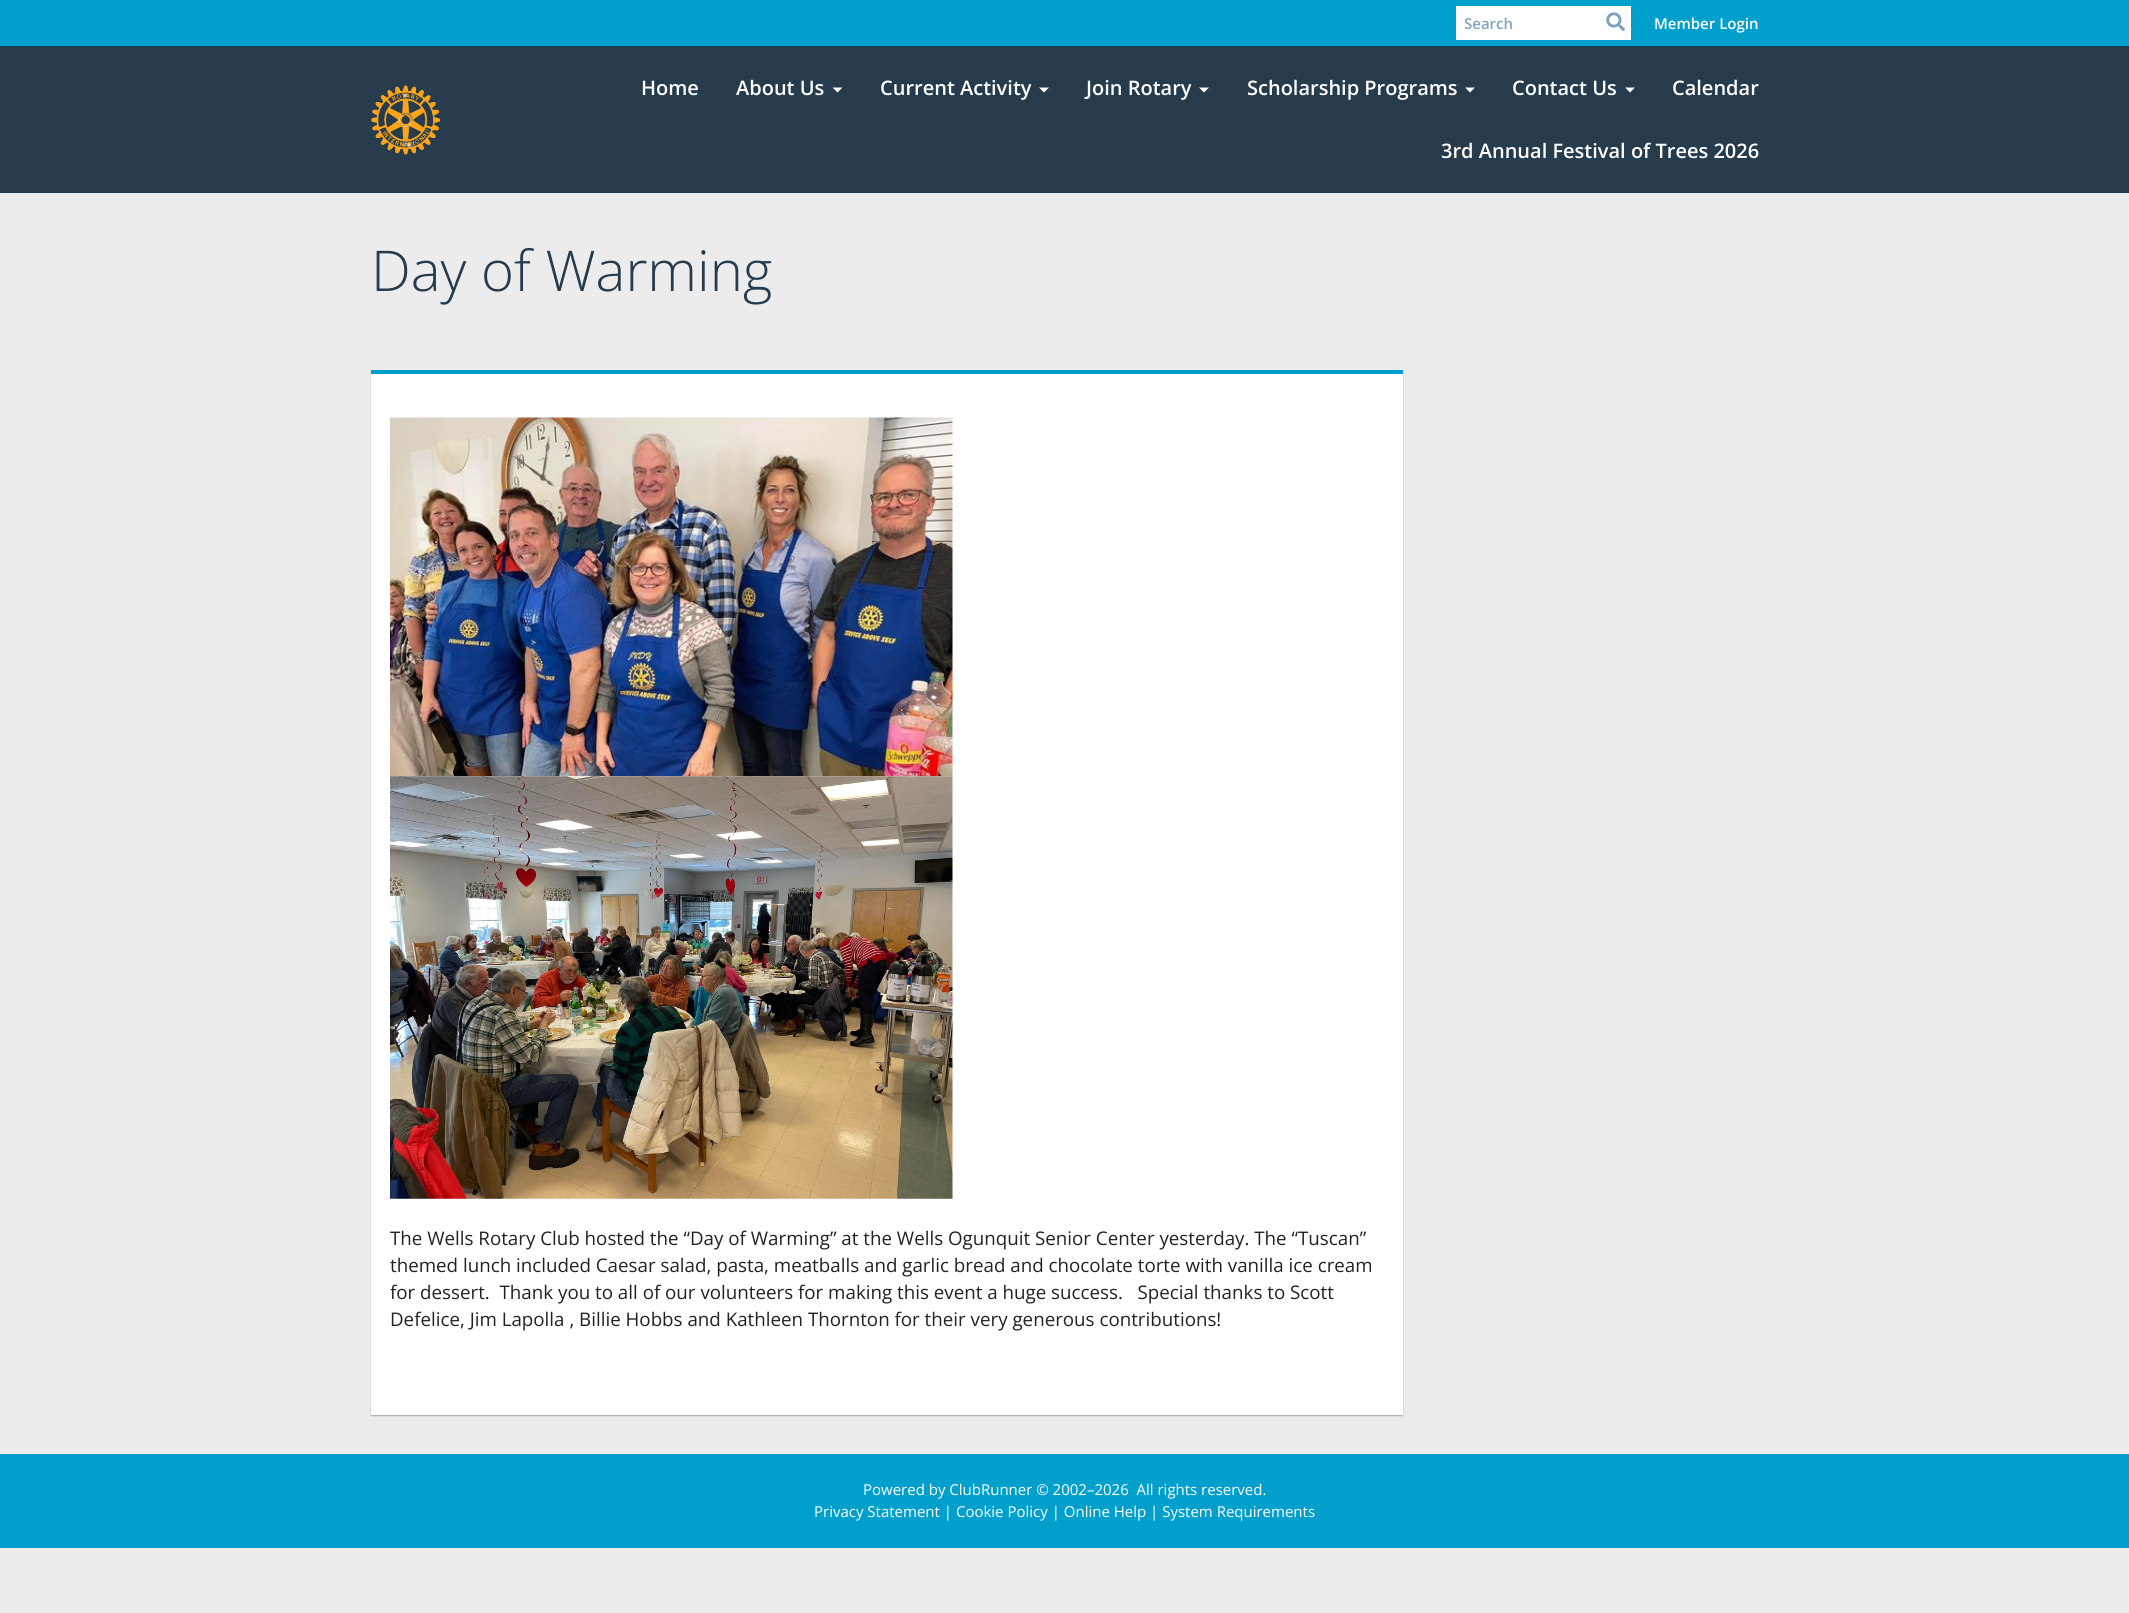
import math
import cairo

surface = cairo.ImageSurface(cairo.Format.RGB24, 2129, 1613)
ctx = cairo.Context(surface)
options = cairo.FontOptions()
options.set_hint_metrics(cairo.HintMetrics.OFF)
options.set_hint_style(cairo.HintStyle.NONE)
ctx.set_font_options(options)
ctx.set_miter_limit(4)


def ink(r, g, b):
    ctx.set_source_rgb(r / 255, g / 255, b / 255)


def write(x, y, s, family, size, color, bold=False, italic=False):
    ctx.select_font_face(family, cairo.FontSlant.ITALIC if italic else cairo.FontSlant.NORMAL, cairo.FontWeight.BOLD if bold else cairo.FontWeight.NORMAL)
    ctx.set_font_size(size)
    ink(*color)
    ctx.move_to(x, y)
    ctx.show_text(s)


def block(x, y, w, h, *color):
    ink(*color)
    ctx.rectangle(x, y, w, h)
    ctx.fill()


def round_path(x, y, w, h, r):
    ctx.new_sub_path()
    for i, (u, v) in enumerate([(x + w - r, y + h - r), (x + r, y + h - r), (x + r, y + r), (x + w - r, y + r)]):
        ctx.arc(u, v, r, i * math.pi / 2, (i + 1) * math.pi / 2)
    ctx.close_path()


def blur_box(x, y, w, h, r, blur, alpha):
    ctx.push_group_with_content(cairo.Content.ALPHA)
    ctx.set_operator(cairo.Operator.SOURCE)
    for i in range(15, -16, -2):
        e = blur * i / 6
        if min(w, h) + 2 * e > 0:
            ctx.set_source_rgba(0, 0, 0, alpha * math.erfc((i - 1) / 8.5) / 2)
            round_path(x - e, y - e, w + 2 * e, h + 2 * e, max(0, min(r + e + blur * .6, min(w, h) / 2 + e)))
            ctx.fill()
    ctx.mask(ctx.pop_group())


def paste(path, x, y, w, h):
    ctx.save()
    ctx.set_source_surface(cairo.ImageSurface.create_from_png(path), x, y)
    ctx.rectangle(x, y, w, h)
    ctx.fill()
    ctx.restore()


s1 = dict(family="Open Sans SemiBold", size=15, color=(127, 162, 191))
s2 = dict(family="Open Sans SemiBold", size=15, color=(255, 255, 255))
s3 = dict(family="Open Sans SemiBold", size=20, color=(255, 255, 255))
s4 = dict(family="Open Sans Light", size=56.25, color=(38, 59, 76))
s5 = dict(family="Open Sans", size=18.75, color=(34, 34, 34))
s6 = dict(family="Open Sans", size=15, color=(255, 255, 255))

ink(236, 236, 236)
ctx.paint()
block(0, 0, 2129, 46, 1, 159, 203)
block(1456, 6, 175, 34, 255, 255, 255)
write(1464, 29, "Search", **s1)
paste("pic1.png", 1606, 12, 19, 19)
write(1654, 29, "Member Login", **s2)
block(0, 46, 2129, 147, 38, 59, 76)
paste("pic2.png", 371, 85, 69, 70)
write(641, 95, "Home", **s3)
write(736, 95, "About Us", **s3)
ctx.new_path()
ctx.move_to(832.5, 87.5)
ctx.line_to(842.5, 87.5)
ctx.line_to(837.5, 92.5)
ctx.close_path()
ctx.fill()
write(880, 95, "Current Activity", **s3)
ctx.new_path()
ctx.move_to(1039, 87.5)
ctx.line_to(1049, 87.5)
ctx.line_to(1044, 92.5)
ctx.close_path()
ctx.fill()
write(1086, 95, "Join Rotary", **s3)
ctx.new_path()
ctx.move_to(1199, 87.5)
ctx.line_to(1209, 87.5)
ctx.line_to(1204, 92.5)
ctx.close_path()
ctx.fill()
write(1247, 95, "Scholarship Programs", **s3)
ctx.new_path()
ctx.move_to(1465, 87.5)
ctx.line_to(1475, 87.5)
ctx.line_to(1470, 92.5)
ctx.close_path()
ctx.fill()
write(1512, 95, "Contact Us", **s3)
ctx.new_path()
ctx.move_to(1625, 87.5)
ctx.line_to(1635, 87.5)
ctx.line_to(1630, 92.5)
ctx.close_path()
ctx.fill()
write(1672, 95, "Calendar", **s3)
write(1441, 158, "3rd Annual Festival of Trees 2026", **s3)
write(371, 291, "Day of Warming", **s4)
ink(0, 0, 0)
blur_box(371, 371, 1032, 1045, 0, 0.5, 0.15)
blur_box(371, 371, 1032, 1045, 0, 0.5, 0.15)
block(371, 374, 1032, 1041, 255, 255, 255)
block(371, 370, 1032, 4, 1, 159, 203)
paste("pic3.png", 390, 417, 563, 360)
paste("pic4.png", 390, 776, 563, 423)
write(390, 1245, "The Wells Rotary Club hosted the “Day of Warming” at the Wells Ogunquit Senior Center yesterday. The “Tuscan”", **s5)
write(390, 1272, "themed lunch included Caesar salad, pasta, meatballs and garlic bread and chocolate torte with vanilla ice cream", **s5)
write(390, 1299, "for dessert.  Thank you to all of our volunteers for making this event a huge success.   Special thanks to Scott", **s5)
write(390, 1326, "Defelice, Jim Lapolla , Billie Hobbs and Kathleen Thornton for their very generous contributions!", **s5)
block(0, 1454, 2129, 94, 1, 159, 203)
write(863, 1495, "Powered by ClubRunner © 2002–2026  All rights reserved.", **s6)
write(814, 1517, "Privacy Statement | Cookie Policy | Online Help | System Requirements", **s6)
surface.write_to_png("screenshot.png")
